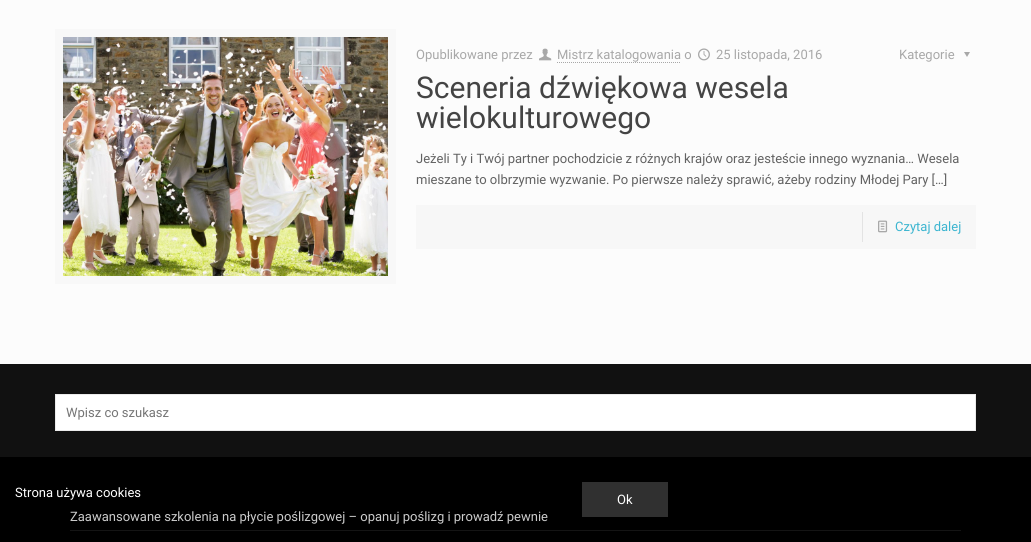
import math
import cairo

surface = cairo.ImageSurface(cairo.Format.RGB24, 1031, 542)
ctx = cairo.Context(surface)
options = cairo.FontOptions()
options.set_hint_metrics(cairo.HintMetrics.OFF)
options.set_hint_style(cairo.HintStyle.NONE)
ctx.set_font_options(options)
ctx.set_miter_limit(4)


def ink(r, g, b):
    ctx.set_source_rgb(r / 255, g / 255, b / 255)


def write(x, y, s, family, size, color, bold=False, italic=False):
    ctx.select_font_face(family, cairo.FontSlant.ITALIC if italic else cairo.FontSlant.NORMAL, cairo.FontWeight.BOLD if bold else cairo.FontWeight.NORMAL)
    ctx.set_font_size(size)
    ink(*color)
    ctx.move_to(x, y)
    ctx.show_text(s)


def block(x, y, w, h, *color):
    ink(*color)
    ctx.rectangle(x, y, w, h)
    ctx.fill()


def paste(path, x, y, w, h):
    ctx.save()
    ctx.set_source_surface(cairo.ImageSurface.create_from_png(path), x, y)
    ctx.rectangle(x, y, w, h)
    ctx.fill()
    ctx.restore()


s1 = dict(family="Roboto", size=13, color=(168, 168, 168))
s2 = dict(family="Roboto", size=30, color=(68, 68, 68))
s3 = dict(family="Roboto", size=13, color=(98, 98, 98))
s4 = dict(family="Roboto", size=13, color=(60, 181, 208))
s5 = dict(family="Roboto", size=13, color=(117, 117, 117))
s6 = dict(family="Roboto", size=13, color=(204, 204, 204))
s7 = dict(family="Roboto", size=13, color=(255, 255, 255))

ink(252, 252, 252)
ctx.paint()
ctx.rectangle(59, 33, 333, 247)
ink(248, 248, 248)
ctx.set_line_width(8)
ctx.stroke()
paste("pic1.png", 63, 37, 325, 239)
write(416, 59, "Opublikowane przez", **s1)
paste("pic2.png", 539, 48, 13, 13)
write(557, 59, "Mistrz katalogowania o", **s1)
ctx.new_path()
ctx.move_to(557, 62.5)
ctx.line_to(681, 62.5)
ctx.set_line_width(1)
ctx.set_dash([1, 1])
ctx.stroke()
paste("pic3.png", 698, 48, 12, 13)
write(716, 59, "25 listopada, 2016", **s1)
write(899, 59, "Kategorie", **s1)
ctx.new_path()
ctx.move_to(970, 52)
ctx.line_to(967, 57)
ctx.line_to(964, 52)
ctx.close_path()
ctx.fill()
write(416, 98, "Sceneria dźwiękowa wesela", **s2)
write(416, 128, "wielokulturowego", **s2)
write(416, 163, "Jeżeli Ty i Twój partner pochodzicie z różnych krajów oraz jesteście innego wyznania… Wesela", **s3)
write(416, 184, "mieszane to olbrzymie wyzwanie. Po pierwsze należy sprawić, ażeby rodziny Młodej Pary […]", **s3)
block(416, 205, 560, 44, 247, 247, 247)
block(862, 212, 1, 30, 227, 227, 227)
paste("pic4.png", 878, 220, 10, 13)
write(895, 231, "Czytaj dalej", **s4)
block(0, 364, 1031, 93, 17, 17, 17)
ink(255, 255, 255)
ctx.rectangle(55.5, 394.5, 920, 36)
ctx.fill_preserve()
ink(235, 235, 235)
ctx.set_dash([])
ctx.stroke()
write(66, 417, "Wpisz co szukasz", **s5)
block(0, 457, 1031, 85, 0, 0, 0)
block(70, 530, 891, 1, 20, 20, 20)
write(70, 521, "Zaawansowane szkolenia na płycie poślizgowej – opanuj poślizg i prowadź pewnie", **s6)
write(15, 497, "Strona używa cookies", **s7)
block(582, 482, 86, 35, 48, 48, 48)
write(617, 504, "Ok", **s7)
surface.write_to_png("screenshot.png")
